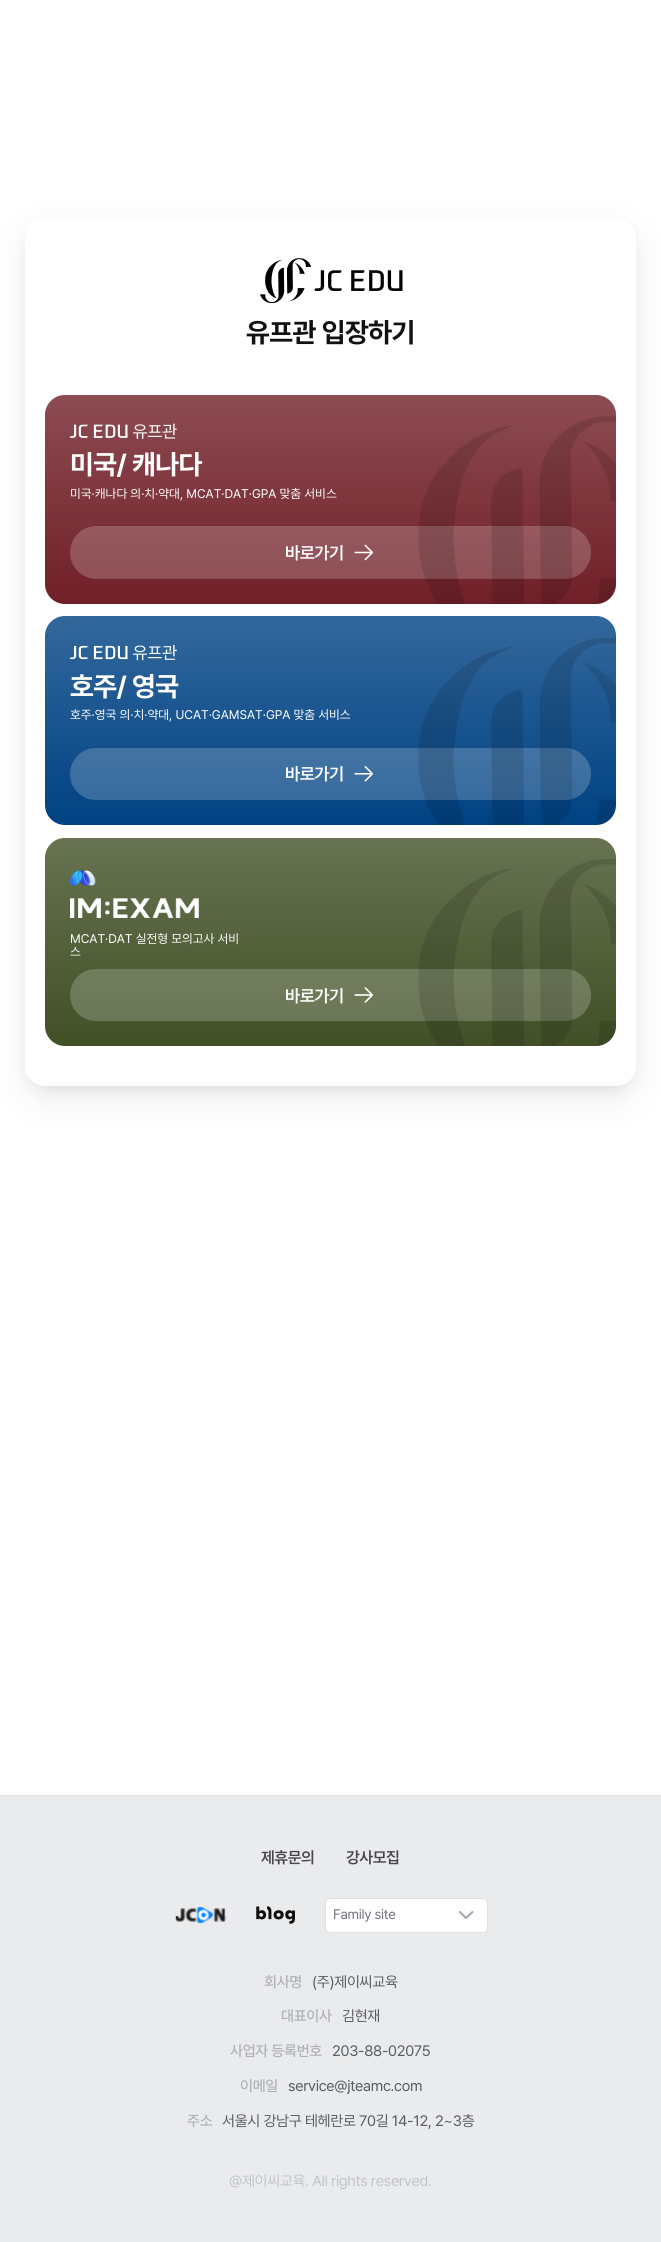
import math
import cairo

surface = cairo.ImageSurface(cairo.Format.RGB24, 661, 2242)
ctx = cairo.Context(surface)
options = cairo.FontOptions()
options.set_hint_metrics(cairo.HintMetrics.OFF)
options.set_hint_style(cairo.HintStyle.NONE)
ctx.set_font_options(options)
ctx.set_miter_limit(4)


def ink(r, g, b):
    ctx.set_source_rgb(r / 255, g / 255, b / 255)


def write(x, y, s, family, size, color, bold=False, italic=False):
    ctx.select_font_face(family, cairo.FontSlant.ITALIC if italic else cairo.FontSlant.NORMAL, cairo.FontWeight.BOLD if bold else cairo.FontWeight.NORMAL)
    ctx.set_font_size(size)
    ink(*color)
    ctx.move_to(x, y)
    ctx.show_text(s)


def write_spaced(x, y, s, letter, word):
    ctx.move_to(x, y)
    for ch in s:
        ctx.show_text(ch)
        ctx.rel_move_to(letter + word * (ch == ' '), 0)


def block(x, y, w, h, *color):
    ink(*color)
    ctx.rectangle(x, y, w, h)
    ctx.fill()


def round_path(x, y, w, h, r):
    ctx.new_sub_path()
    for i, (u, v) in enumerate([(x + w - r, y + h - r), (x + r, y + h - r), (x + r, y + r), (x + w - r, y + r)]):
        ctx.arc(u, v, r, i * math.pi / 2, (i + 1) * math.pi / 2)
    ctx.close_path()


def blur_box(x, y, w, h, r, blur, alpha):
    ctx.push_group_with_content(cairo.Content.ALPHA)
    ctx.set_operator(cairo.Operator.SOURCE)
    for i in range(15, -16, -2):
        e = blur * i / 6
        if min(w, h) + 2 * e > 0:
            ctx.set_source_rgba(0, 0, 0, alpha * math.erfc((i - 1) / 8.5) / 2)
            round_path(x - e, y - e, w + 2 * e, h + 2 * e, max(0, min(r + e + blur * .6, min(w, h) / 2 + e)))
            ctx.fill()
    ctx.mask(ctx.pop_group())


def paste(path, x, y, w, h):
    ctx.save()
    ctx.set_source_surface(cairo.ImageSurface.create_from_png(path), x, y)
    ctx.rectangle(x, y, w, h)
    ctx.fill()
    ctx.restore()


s1 = dict(family="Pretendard", size=12.5, color=(255, 255, 255))

ink(255, 255, 255)
ctx.paint()
ink(34, 34, 34)
blur_box(30, 235, 601, 859, 15, 20, 0.1)
blur_box(33, 233, 596, 853, 13, 9, 0.12)
ink(255, 255, 255)
round_path(25, 218, 611, 868, 20)
ctx.fill()
paste("pic1.png", 260, 258, 143, 45)
ctx.select_font_face("Pretendard", cairo.FontSlant.NORMAL, cairo.FontWeight.BOLD)
ctx.set_font_size(27.5)
ink(18, 18, 18)
write_spaced(246, 342, "유프관 입장하기", -0.5, 0)
ink(112, 31, 39)
round_path(45, 395, 571, 209, 20)
ctx.fill()
gradient = cairo.LinearGradient(331, 395, 331, 604)
gradient.add_color_stop_rgba(0, 1, 1, 1, 0.2)
gradient.add_color_stop_rgba(1, 1, 1, 1, 0)
ctx.set_source(gradient)
round_path(45, 395, 571, 209, 20)
ctx.fill()
paste("pic2.png", 70, 423, 107, 16)
ctx.set_source_rgba(1, 1, 1, 0.2)
round_path(70, 526, 521, 53, 26.5)
ctx.fill()
paste("pic3.png", 418, 416, 198, 188)
ink(255, 255, 255)
write_spaced(70, 474, "미국/ 캐나다", -0.5, 0)
write(70, 498, "미국·캐나다 의·치·약대, MCAT·DAT·GPA 맞춤 서비스", **s1)
ctx.select_font_face("Pretendard SemiBold")
ctx.set_font_size(17.5)
write_spaced(285, 559, "바로가기", -0.5, 0)
paste("pic4.png", 354, 544, 20, 17)
ink(0, 66, 131)
round_path(45, 616, 571, 209, 20)
ctx.fill()
gradient = cairo.LinearGradient(331, 616, 331, 825)
gradient.add_color_stop_rgba(0, 1, 1, 1, 0.2)
gradient.add_color_stop_rgba(1, 1, 1, 1, 0)
ctx.set_source(gradient)
round_path(45, 616, 571, 209, 20)
ctx.fill()
paste("pic5.png", 70, 644, 107, 17)
ctx.select_font_face("Pretendard", cairo.FontSlant.NORMAL, cairo.FontWeight.BOLD)
ctx.set_font_size(27.5)
ink(255, 255, 255)
write_spaced(70, 696, "호주/ 영국", -0.5, 0)
write(70, 719, "호주·영국 의·치·약대, UCAT·GAMSAT·GPA 맞춤 서비스", **s1)
ctx.set_source_rgba(1, 1, 1, 0.2)
round_path(70, 748, 521, 52, 26)
ctx.fill()
paste("pic6.png", 418, 638, 198, 187)
ctx.select_font_face("Pretendard SemiBold")
ctx.set_font_size(17.5)
ink(255, 255, 255)
write_spaced(285, 780, "바로가기", -0.5, 0)
paste("pic7.png", 354, 766, 20, 16)
ink(65, 80, 38)
round_path(45, 838, 571, 208, 20)
ctx.fill()
gradient = cairo.LinearGradient(331, 838, 331, 1046)
gradient.add_color_stop_rgba(0, 1, 1, 1, 0.2)
gradient.add_color_stop_rgba(1, 1, 1, 1, 0)
ctx.set_source(gradient)
round_path(45, 838, 571, 208, 20)
ctx.fill()
paste("pic8.png", 70, 870, 129, 48)
write(70, 943, "MCAT·DAT 실전형 모의고사 서비", **s1)
write(70, 956, "스", **s1)
ctx.set_source_rgba(1, 1, 1, 0.2)
round_path(70, 969, 521, 52, 26)
ctx.fill()
paste("pic9.png", 418, 859, 198, 187)
ctx.select_font_face("Pretendard SemiBold")
ctx.set_font_size(17.5)
ink(255, 255, 255)
write_spaced(285, 1002, "바로가기", -0.5, 0)
paste("pic10.png", 354, 987, 19, 16)
block(0, 1796, 661, 446, 234, 235, 236)
block(0, 1795, 661, 1, 225, 226, 228)
ctx.set_font_size(16)
ink(70, 71, 76)
write_spaced(261, 1863, "제휴문의", -0.5, 0)
write_spaced(346, 1863, "강사모집", -0.5, 0)
paste("pic11.png", 175, 1906, 51, 18)
paste("pic12.png", 256, 1906, 39, 18)
ink(255, 255, 255)
round_path(325, 1898, 163, 35, 5)
ctx.fill()
round_path(325.5, 1898.5, 162, 34, 4.5)
ctx.set_source_rgba(0.435, 0.447, 0.482, 0.22)
ctx.set_line_width(1)
ctx.stroke()
ctx.select_font_face("Pretendard")
ctx.set_font_size(13.75)
ink(112, 115, 124)
write_spaced(333, 1919, "Family site", -0.25, 0)
ctx.new_path()
ctx.move_to(460, 1912)
ctx.line_to(466, 1918)
ctx.line_to(472.5, 1912)
ink(162, 169, 176)
ctx.set_line_width(2.1)
ctx.set_line_cap(cairo.LineCap.ROUND)
ctx.set_line_join(cairo.LineJoin.ROUND)
ctx.stroke()
ctx.select_font_face("Pretendard Medium")
ctx.set_font_size(15)
ink(174, 176, 182)
write_spaced(264, 1987, "회사명", -0.3, 0)
ctx.select_font_face("Pretendard")
ink(90, 92, 99)
write_spaced(312, 1987, "(주)제이씨교육", -0.3, 0)
ctx.select_font_face("Pretendard Medium")
ink(174, 176, 182)
write_spaced(281, 2021, "대표이사", -0.3, 0)
ctx.select_font_face("Pretendard")
ink(90, 92, 99)
write_spaced(342, 2021, "김현재", -0.3, 0)
ctx.select_font_face("Pretendard Medium")
ink(174, 176, 182)
write_spaced(230, 2056, "사업자 등록번호", -0.3, 0)
ctx.select_font_face("Pretendard")
ink(90, 92, 99)
write_spaced(332, 2056, "203-88-02075", -0.3, 0)
ctx.select_font_face("Pretendard Medium")
ink(174, 176, 182)
write_spaced(240, 2091, "이메일", -0.3, 0)
ctx.select_font_face("Pretendard")
ink(90, 92, 99)
write_spaced(288, 2091, "service@jteamc.com", -0.3, 0)
ctx.select_font_face("Pretendard Medium")
ink(174, 176, 182)
write_spaced(187, 2126, "주소", -0.3, 0)
ctx.select_font_face("Pretendard")
ink(90, 92, 99)
write_spaced(222, 2126, "서울시 강남구 테헤란로 70길 14-12, 2~3층", -0.3, 0)
ink(194, 196, 200)
write_spaced(229, 2186, "@제이씨교육. All rights reserved.", -0.3, 0)
surface.write_to_png("screenshot.png")
